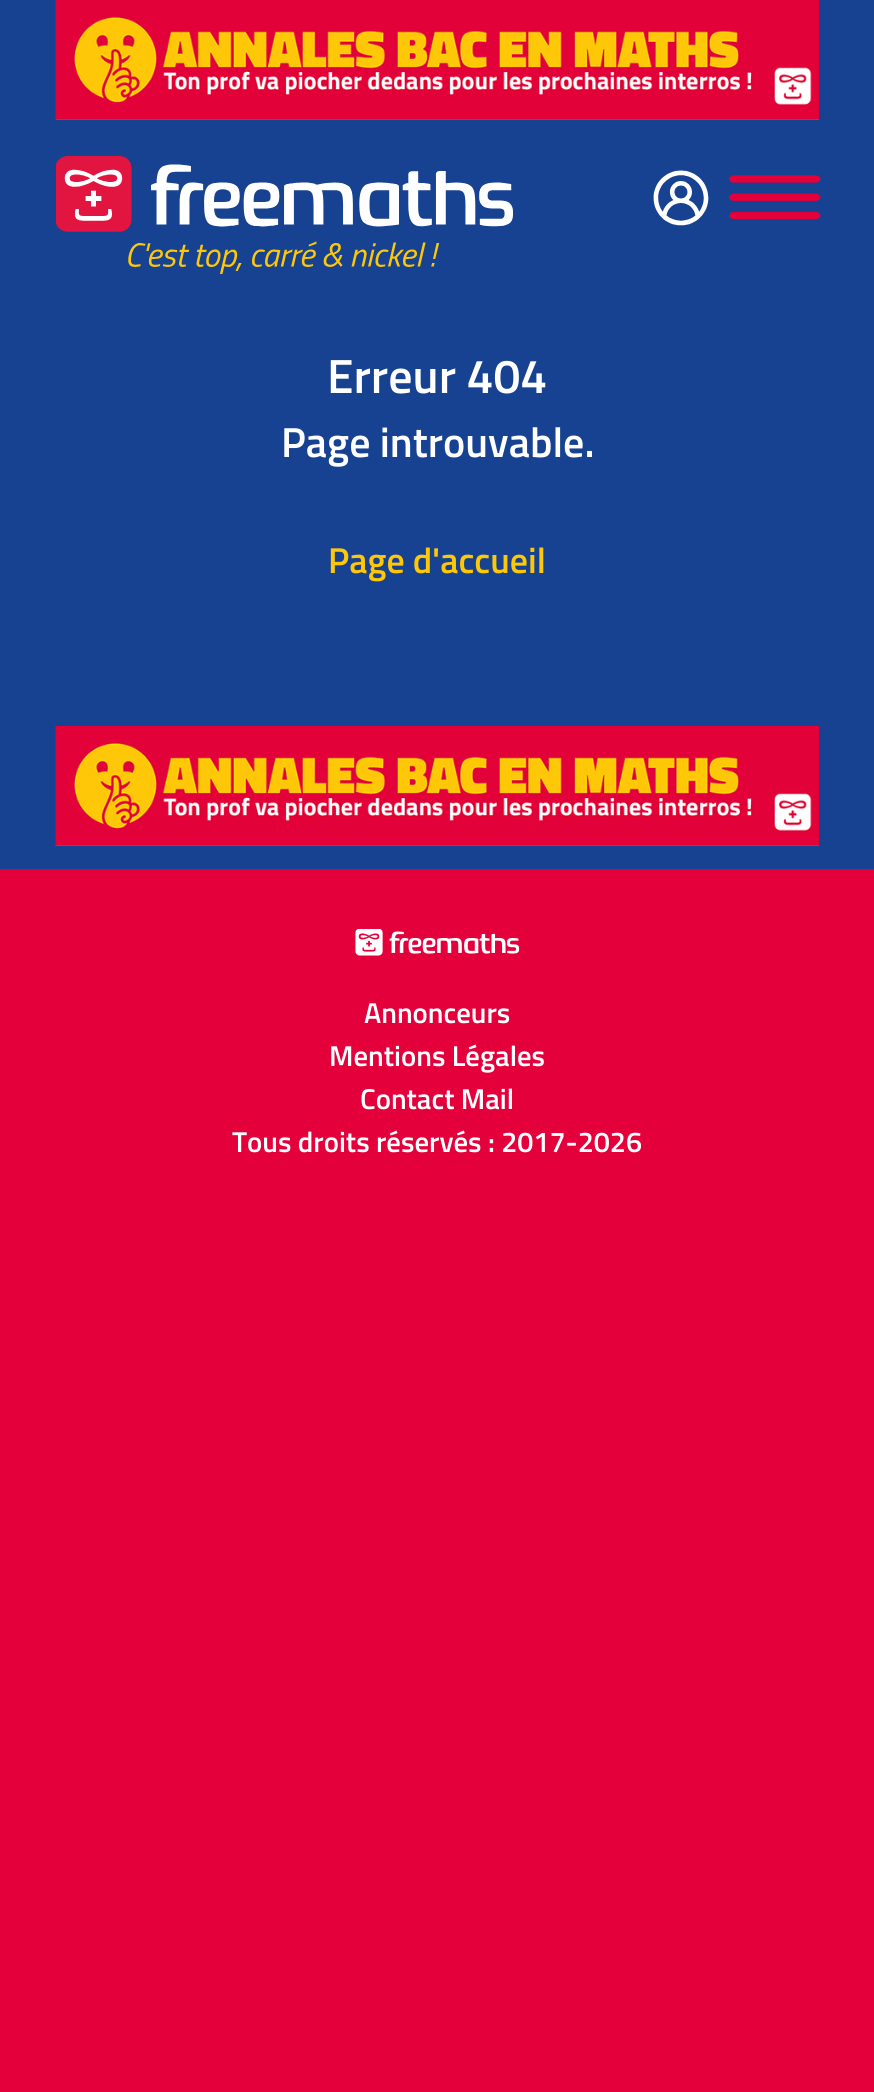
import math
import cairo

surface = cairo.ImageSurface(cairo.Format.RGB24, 874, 2092)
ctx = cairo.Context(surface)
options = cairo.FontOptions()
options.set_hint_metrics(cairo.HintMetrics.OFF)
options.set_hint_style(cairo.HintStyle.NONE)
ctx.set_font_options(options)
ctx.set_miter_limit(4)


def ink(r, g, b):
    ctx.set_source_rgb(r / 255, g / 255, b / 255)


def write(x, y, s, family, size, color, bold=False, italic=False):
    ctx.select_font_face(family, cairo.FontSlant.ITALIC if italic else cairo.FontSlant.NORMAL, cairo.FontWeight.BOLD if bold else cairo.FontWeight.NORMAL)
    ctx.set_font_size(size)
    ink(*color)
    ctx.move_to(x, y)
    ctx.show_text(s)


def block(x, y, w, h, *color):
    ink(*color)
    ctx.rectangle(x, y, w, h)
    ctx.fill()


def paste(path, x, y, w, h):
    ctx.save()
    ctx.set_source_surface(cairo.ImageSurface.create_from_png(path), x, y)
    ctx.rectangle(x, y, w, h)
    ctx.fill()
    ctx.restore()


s1 = dict(family="Titillium Web SemiBold", size=48, color=(255, 255, 255))
s2 = dict(family="Titillium Web SemiBold", size=42, color=(255, 255, 255))
s3 = dict(family="Titillium Web SemiBold", size=36, color=(254, 199, 7))
s4 = dict(family="Titillium Web SemiBold", size=28.75, color=(255, 255, 255))

ink(228, 0, 59)
ctx.paint()
block(0, 0, 874, 869, 22, 66, 145)
paste("pic1.png", 55, 0, 764, 120)
paste("pic2.png", 56, 156, 457, 118)
paste("pic3.png", 653, 170, 56, 56)
paste("pic4.png", 729, 175, 92, 45)
write(327, 393, "Erreur 404", **s1)
write(281, 457, "Page introuvable.", **s2)
write(328, 573, "Page d'accueil", **s3)
paste("pic5.png", 55, 726, 764, 120)
paste("pic6.png", 355, 929, 165, 27)
write(364, 1023, "Annonceurs", **s4)
write(329, 1066, "Mentions Légales", **s4)
write(360, 1109, "Contact Mail", **s4)
write(232, 1152, "Tous droits réservés : 2017-2026", **s4)
surface.write_to_png("screenshot.png")
